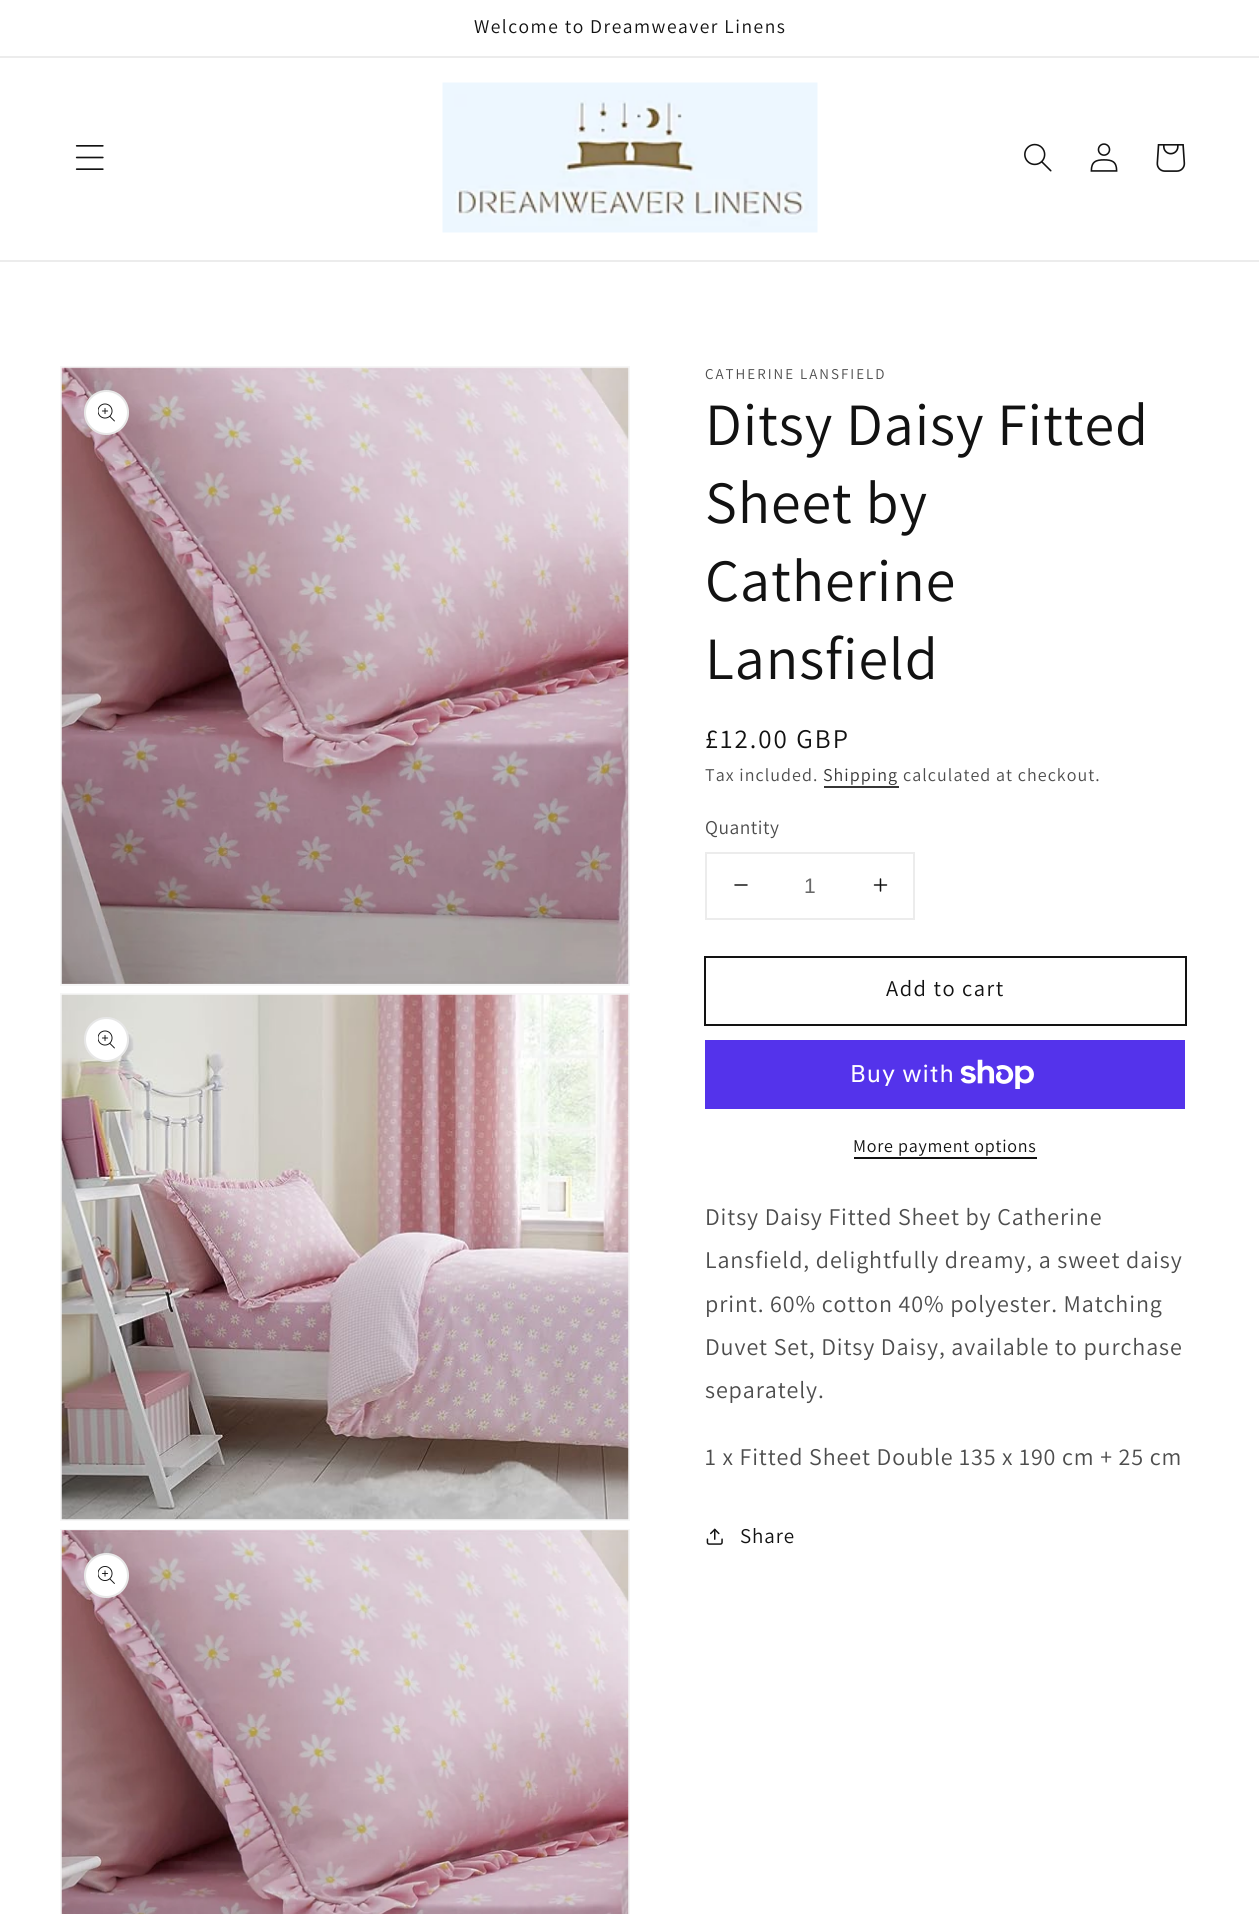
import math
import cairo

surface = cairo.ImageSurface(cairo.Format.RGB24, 1259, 1914)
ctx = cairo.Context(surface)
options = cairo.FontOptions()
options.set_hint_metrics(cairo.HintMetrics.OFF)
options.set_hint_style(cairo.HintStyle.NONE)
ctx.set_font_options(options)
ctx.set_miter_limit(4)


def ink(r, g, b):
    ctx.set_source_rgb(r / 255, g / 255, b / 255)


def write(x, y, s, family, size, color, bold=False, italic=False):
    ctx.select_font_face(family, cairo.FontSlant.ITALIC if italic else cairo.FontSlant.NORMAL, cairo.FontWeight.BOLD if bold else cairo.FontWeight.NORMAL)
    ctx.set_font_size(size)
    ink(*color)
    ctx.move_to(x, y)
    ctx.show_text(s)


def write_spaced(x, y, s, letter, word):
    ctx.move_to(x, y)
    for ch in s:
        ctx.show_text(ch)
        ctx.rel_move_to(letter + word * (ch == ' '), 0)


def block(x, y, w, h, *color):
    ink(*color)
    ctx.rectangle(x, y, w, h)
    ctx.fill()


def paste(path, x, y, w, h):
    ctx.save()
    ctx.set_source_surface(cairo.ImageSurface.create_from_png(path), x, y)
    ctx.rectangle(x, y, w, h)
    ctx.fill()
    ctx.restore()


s1 = dict(family="Liberation Sans", size=21, color=(104, 104, 104))

ink(255, 255, 255)
ctx.paint()
block(0, 56, 1259, 2, 236, 236, 236)
ctx.select_font_face("Assistant")
ctx.set_font_size(19.5)
ink(18, 18, 18)
write_spaced(474, 33, "Welcome to Dreamweaver Linens", 1.5, 0)
block(0, 260, 1259, 2, 236, 236, 236)
paste("pic1.png", 75, 145, 29, 25)
paste("pic2.png", 442, 82, 376, 151)
paste("pic3.png", 1024, 143, 28, 29)
paste("pic4.png", 1090, 143, 28, 29)
paste("pic5.png", 1156, 144, 30, 28)
ctx.rectangle(61, 367, 568, 618)
ink(246, 246, 246)
ctx.stroke()
paste("pic6.png", 61, 367, 568, 617)
ink(255, 255, 255)
ctx.arc(106.5, 412.5, 22.5, 0, 2 * math.pi)
ctx.fill()
ctx.arc(106.5, 412.5, 21.5, 0, 2 * math.pi)
ctx.set_source_rgba(0.071, 0.071, 0.071, 0.1)
ctx.stroke()
paste("pic7.png", 98, 403, 17, 19)
ctx.rectangle(61, 994, 568, 526)
ink(246, 246, 246)
ctx.stroke()
paste("pic8.png", 61, 994, 568, 526)
ink(255, 255, 255)
ctx.arc(106.5, 1039.5, 22.5, 0, 2 * math.pi)
ctx.fill()
ctx.arc(106.5, 1039.5, 21.5, 0, 2 * math.pi)
ctx.set_source_rgba(0.071, 0.071, 0.071, 0.1)
ctx.stroke()
paste("pic7.png", 98, 1030, 17, 19)
ctx.rectangle(61, 1530, 568, 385)
ink(246, 246, 246)
ctx.stroke()
paste("pic9.png", 61, 1530, 568, 384)
ink(255, 255, 255)
ctx.arc(106.5, 1575.5, 22.5, 0, 2 * math.pi)
ctx.fill()
ctx.arc(106.5, 1575.5, 21.5, 0, 2 * math.pi)
ctx.set_source_rgba(0.071, 0.071, 0.071, 0.1)
ctx.stroke()
paste("pic10.png", 98, 1566, 17, 18)
ctx.set_font_size(15)
ink(77, 77, 77)
write_spaced(705, 379, "CATHERINE LANSFIELD", 2, 0)
ctx.set_font_size(60)
ink(18, 18, 18)
write_spaced(705, 445, "Ditsy Daisy Fitted", 0.9, 0)
write_spaced(705, 523, "Sheet by", 0.9, 0)
write_spaced(705, 601, "Catherine", 0.9, 0)
write_spaced(705, 679, "Lansfield", 0.9, 0)
ctx.set_font_size(27)
write_spaced(705, 748, "£12.00 GBP", 2, 0)
ctx.set_font_size(18)
ink(77, 77, 77)
write_spaced(705, 781, "Tax included.", 1.05, 0)
ink(54, 54, 54)
write_spaced(823, 781, "Shipping", 1.05, 0)
block(824, 786, 75, 2, 54, 54, 54)
ink(77, 77, 77)
write_spaced(903, 781, "calculated at checkout.", 1.05, 0)
ctx.set_font_size(19.5)
write_spaced(705, 834, "Quantity", 0.5, 0)
ctx.rectangle(706, 853, 208, 66)
ink(236, 236, 236)
ctx.stroke()
paste("pic11.png", 734, 884, 14, 2)
write(804, 893, "1", **s1)
paste("pic12.png", 873, 878, 15, 14)
ctx.rectangle(705, 957, 481, 68)
ink(18, 18, 18)
ctx.stroke()
ctx.select_font_face("Assistant")
ctx.set_font_size(22.5)
write_spaced(886, 996, "Add to cart", 1.5, 0)
block(705, 1040, 480, 69, 84, 51, 235)
ctx.select_font_face("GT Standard")
ctx.set_font_size(24)
ink(255, 255, 255)
write_spaced(850, 1082, "Buy with", 0.9, 0)
paste("pic13.png", 960, 1059, 74, 30)
ctx.select_font_face("Assistant")
ctx.set_font_size(18)
ink(18, 18, 18)
write_spaced(853, 1152, "More payment options", 0.75, 0)
block(854, 1157, 183, 2, 18, 18, 18)
ctx.set_font_size(24)
ink(77, 77, 77)
write_spaced(705, 1225, "Ditsy Daisy Fitted Sheet by Catherine", 0.9, 0)
write_spaced(705, 1268, "Lansfield, delightfully dreamy, a sweet daisy", 0.9, 0)
write_spaced(705, 1312, "print. 60% cotton 40% polyester. Matching", 0.9, 0)
write_spaced(705, 1355, "Duvet Set, Ditsy Daisy, available to purchase", 0.9, 0)
write_spaced(705, 1398, "separately.", 0.9, 0)
write_spaced(705, 1465, "1 x Fitted Sheet Double 135 x 190 cm + 25 cm", 0.9, 0)
paste("pic14.png", 706, 1528, 17, 17)
ctx.set_font_size(21)
ink(18, 18, 18)
write_spaced(740, 1543, "Share", 0.9, 0)
surface.write_to_png("screenshot.png")
